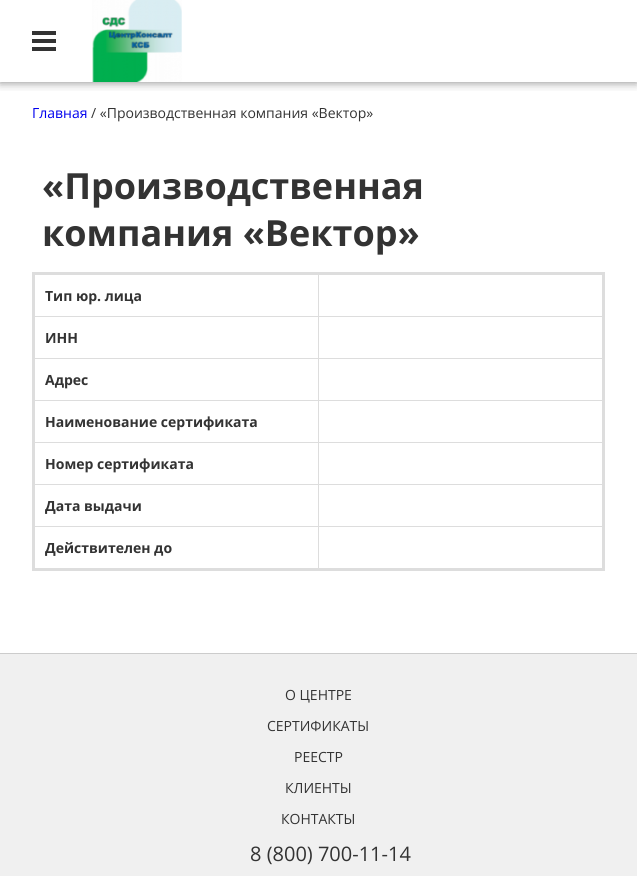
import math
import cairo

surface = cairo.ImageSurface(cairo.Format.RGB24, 637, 876)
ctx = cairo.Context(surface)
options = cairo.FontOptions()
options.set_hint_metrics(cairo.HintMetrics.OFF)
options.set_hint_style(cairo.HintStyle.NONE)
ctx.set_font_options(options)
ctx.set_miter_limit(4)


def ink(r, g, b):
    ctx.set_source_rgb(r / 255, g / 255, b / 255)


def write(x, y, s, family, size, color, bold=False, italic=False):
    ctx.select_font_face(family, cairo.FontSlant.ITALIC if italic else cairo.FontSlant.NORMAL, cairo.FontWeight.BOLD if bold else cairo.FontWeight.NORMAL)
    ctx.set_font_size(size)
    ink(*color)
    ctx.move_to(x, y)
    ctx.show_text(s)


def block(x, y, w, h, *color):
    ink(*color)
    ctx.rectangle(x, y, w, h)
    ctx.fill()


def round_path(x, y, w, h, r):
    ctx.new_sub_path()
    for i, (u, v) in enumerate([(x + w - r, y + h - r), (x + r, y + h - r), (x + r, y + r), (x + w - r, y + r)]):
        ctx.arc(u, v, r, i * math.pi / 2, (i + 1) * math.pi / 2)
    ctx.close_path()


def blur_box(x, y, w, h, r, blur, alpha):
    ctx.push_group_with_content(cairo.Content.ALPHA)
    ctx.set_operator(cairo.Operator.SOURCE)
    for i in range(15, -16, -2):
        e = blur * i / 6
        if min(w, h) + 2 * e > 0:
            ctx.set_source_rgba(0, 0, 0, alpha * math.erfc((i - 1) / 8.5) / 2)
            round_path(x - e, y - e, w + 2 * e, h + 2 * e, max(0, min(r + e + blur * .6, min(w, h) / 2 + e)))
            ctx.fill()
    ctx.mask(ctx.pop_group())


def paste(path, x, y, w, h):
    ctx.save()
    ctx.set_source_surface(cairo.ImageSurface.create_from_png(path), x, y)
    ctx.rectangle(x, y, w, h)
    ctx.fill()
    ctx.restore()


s1 = dict(family="Open Sans", size=14, color=(0, 0, 238))
s2 = dict(family="Open Sans", size=14, color=(51, 51, 51))
s3 = dict(family="Open Sans", size=36, color=(51, 51, 51), bold=True)
s4 = dict(family="Open Sans", size=14, color=(51, 51, 51), bold=True)
s5 = dict(family="Open Sans", size=20, color=(51, 51, 51))

ink(255, 255, 255)
ctx.paint()
ctx.save()
ctx.rectangle(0, 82, 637, 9)
ctx.clip()
ink(0, 0, 0)
blur_box(0, 0, 637, 82, 0, 5, 0.5)
ctx.restore()
block(32, 31, 24, 4, 51, 51, 51)
block(32, 39, 24, 4, 51, 51, 51)
block(32, 47, 24, 4, 51, 51, 51)
paste("pic1.png", 92, 0, 90, 82)
write(32, 118, "Главная", **s1)
write(91, 118, "/ «Производственная компания «Вектор»", **s2)
write(42, 199, "«Производственная", **s3)
write(42, 246, "компания «Вектор»", **s3)
block(318, 526, 1, 44, 221, 221, 221)
block(318, 526, 286, 1, 221, 221, 221)
block(318, 484, 1, 43, 221, 221, 221)
block(318, 484, 286, 1, 221, 221, 221)
block(318, 442, 1, 43, 221, 221, 221)
block(318, 442, 286, 1, 221, 221, 221)
block(318, 400, 1, 43, 221, 221, 221)
block(318, 400, 286, 1, 221, 221, 221)
block(318, 358, 1, 43, 221, 221, 221)
block(318, 358, 286, 1, 221, 221, 221)
block(318, 316, 1, 43, 221, 221, 221)
block(318, 316, 286, 1, 221, 221, 221)
block(318, 273, 1, 44, 221, 221, 221)
block(32, 272, 573, 3, 221, 221, 221)
block(602, 272, 3, 299, 221, 221, 221)
block(32, 568, 573, 3, 221, 221, 221)
block(33, 316, 286, 1, 221, 221, 221)
block(33, 358, 286, 1, 221, 221, 221)
block(33, 400, 286, 1, 221, 221, 221)
block(33, 442, 286, 1, 221, 221, 221)
block(33, 484, 286, 1, 221, 221, 221)
block(33, 526, 286, 1, 221, 221, 221)
block(32, 272, 3, 299, 221, 221, 221)
write(45, 301, "Тип юр. лица", **s4)
write(45, 343, "ИНН", **s4)
write(45, 385, "Адрес", **s4)
write(45, 427, "Наименование сертификата", **s4)
write(45, 469, "Номер сертификата", **s4)
write(45, 511, "Дата выдачи", **s4)
write(45, 553, "Действителен до", **s4)
block(0, 653, 637, 1, 204, 204, 204)
block(0, 654, 637, 222, 240, 240, 240)
write(285, 700, "О ЦЕНТРЕ", **s2)
write(267, 731, "СЕРТИФИКАТЫ", **s2)
write(294, 762, "РЕЕСТР", **s2)
write(285, 793, "КЛИЕНТЫ", **s2)
write(281, 824, "КОНТАКТЫ", **s2)
write(250, 861, "8 (800) 700-11-14", **s5)
surface.write_to_png("screenshot.png")
